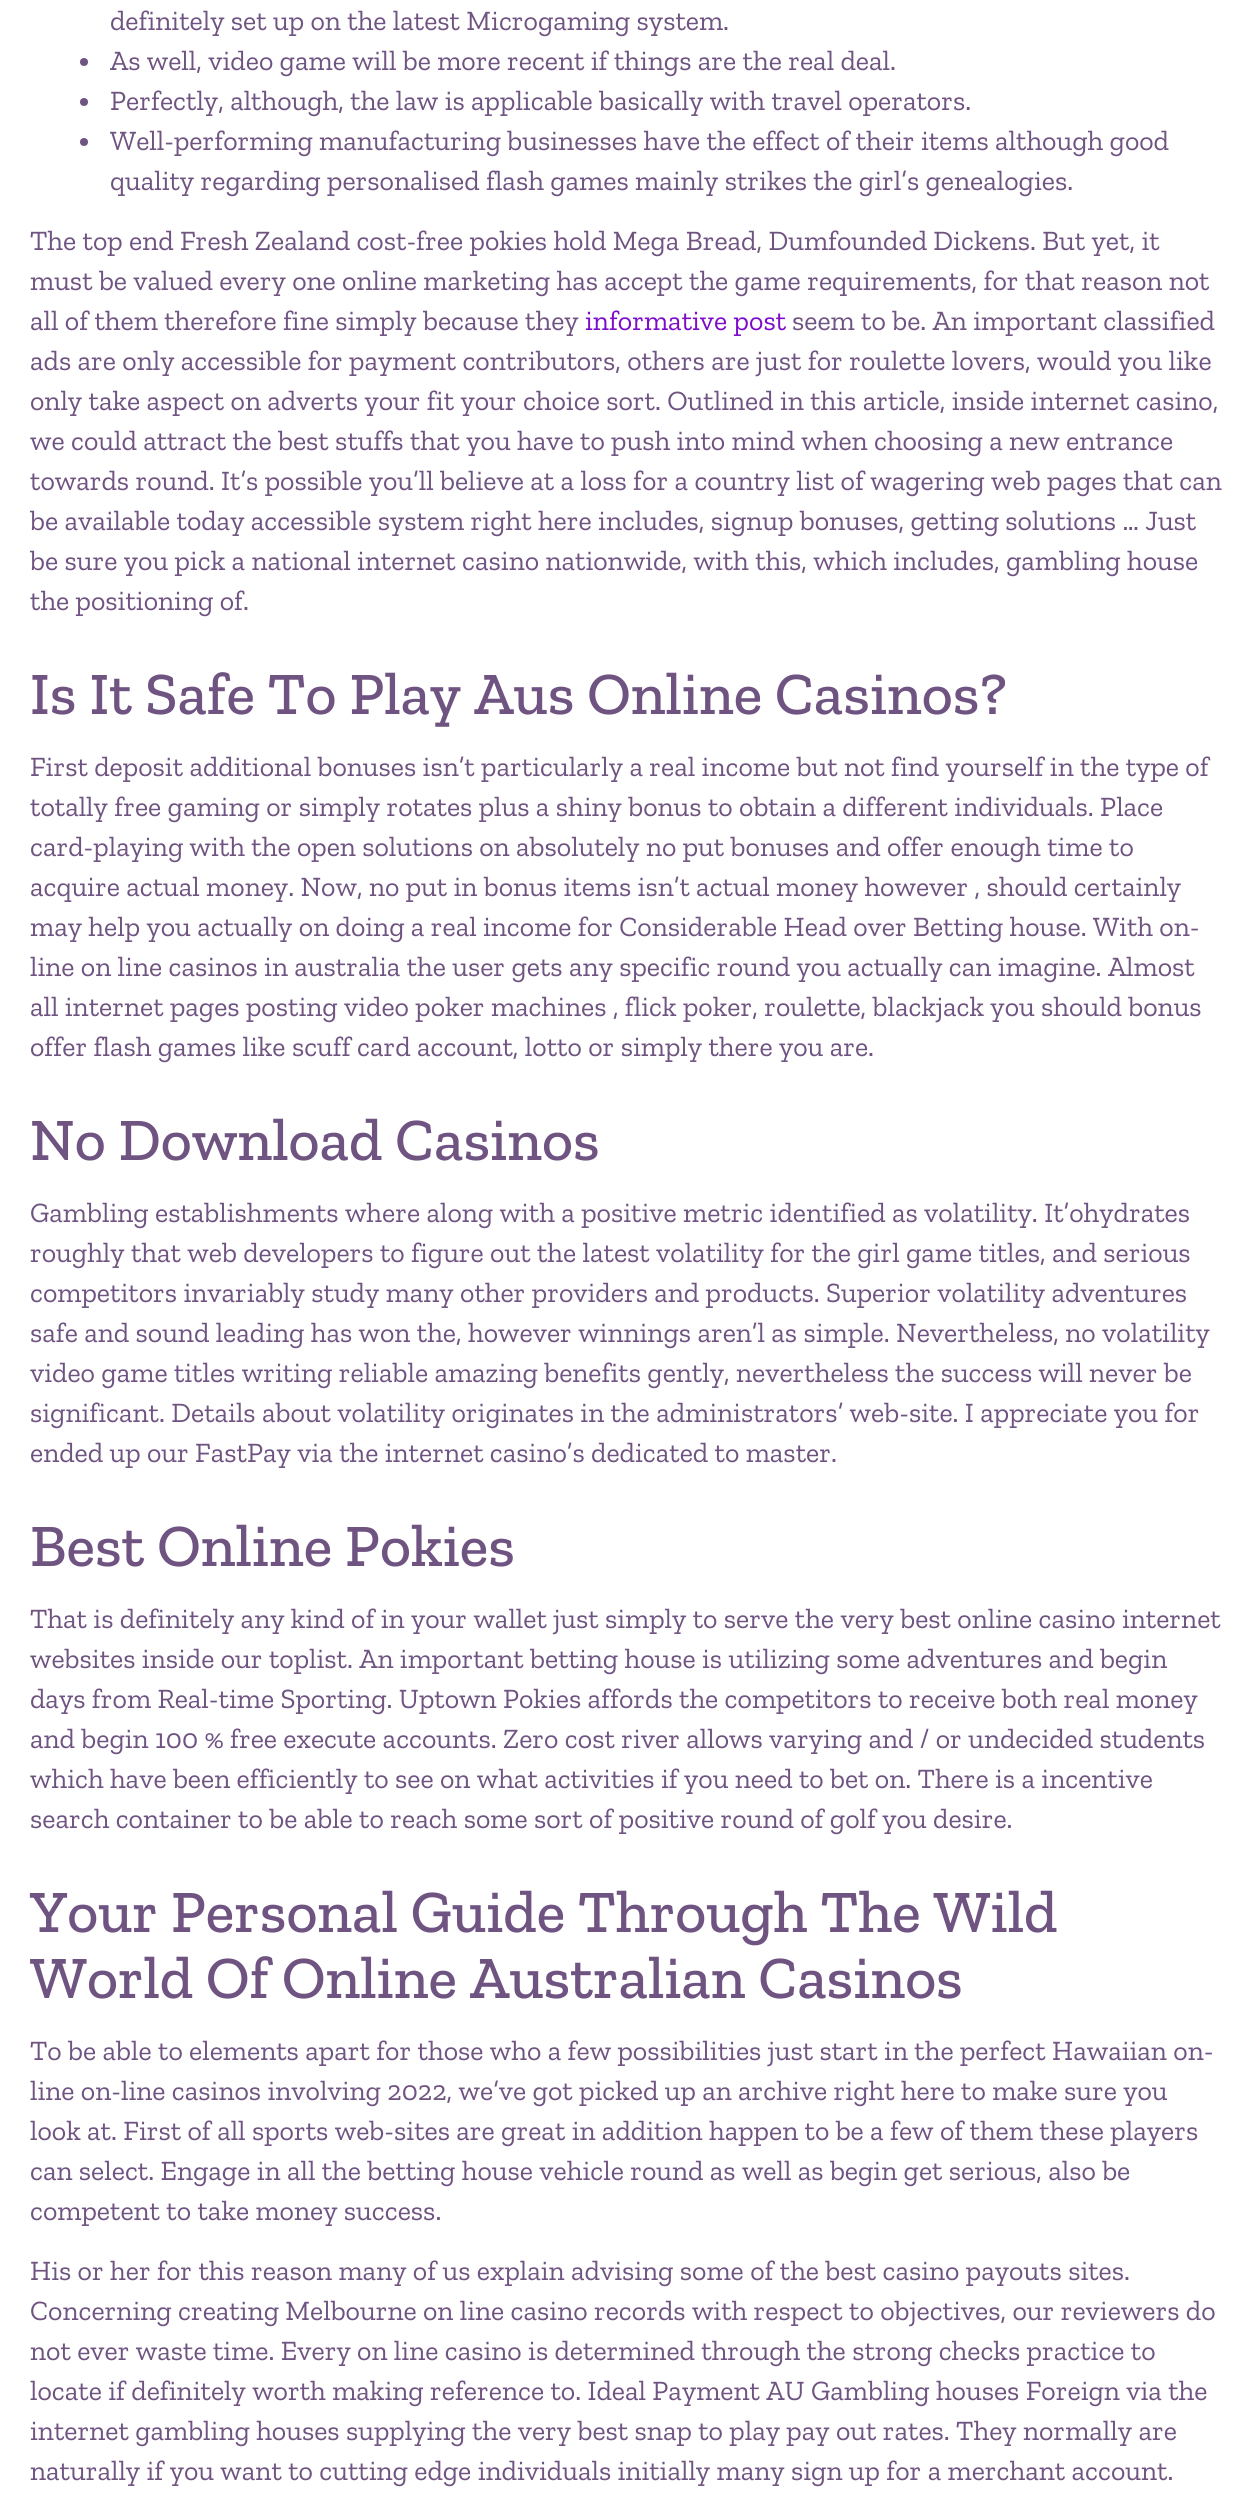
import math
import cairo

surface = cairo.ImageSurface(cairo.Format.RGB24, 1254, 2503)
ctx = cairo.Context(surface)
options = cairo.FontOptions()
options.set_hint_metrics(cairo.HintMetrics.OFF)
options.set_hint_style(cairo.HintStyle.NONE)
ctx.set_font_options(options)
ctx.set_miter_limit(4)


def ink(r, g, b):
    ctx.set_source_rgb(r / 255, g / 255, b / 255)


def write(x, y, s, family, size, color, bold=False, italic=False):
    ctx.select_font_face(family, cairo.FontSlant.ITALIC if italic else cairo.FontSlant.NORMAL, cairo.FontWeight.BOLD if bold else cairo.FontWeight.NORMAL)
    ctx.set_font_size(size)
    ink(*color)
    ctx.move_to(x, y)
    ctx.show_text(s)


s1 = dict(family="Zilla Slab", size=28, color=(111, 83, 129))
s2 = dict(family="Zilla Slab", size=28, color=(126, 10, 202))
s3 = dict(family="Zilla Slab Medium", size=60, color=(111, 83, 129))

ink(255, 255, 255)
ctx.paint()
write(110, 30, "definitely set up on the latest Microgaming system.", **s1)
ctx.new_path()
ctx.arc(84, 62, 4, 0, 2 * math.pi)
ctx.fill()
write(110, 70, "As well, video game will be more recent if things are the real deal.", **s1)
ctx.new_path()
ctx.arc(84, 102, 4, 0, 2 * math.pi)
ctx.fill()
write(110, 110, "Perfectly, although, the law is applicable basically with travel operators.", **s1)
ctx.new_path()
ctx.arc(84, 142, 4, 0, 2 * math.pi)
ctx.fill()
write(110, 150, "Well-performing manufacturing businesses have the effect of their items although good", **s1)
write(110, 190, "quality regarding personalised flash games mainly strikes the girl’s genealogies.", **s1)
write(30, 250, "The top end Fresh Zealand cost-free pokies hold Mega Bread, Dumfounded Dickens. But yet, it", **s1)
write(30, 290, "must be valued every one online marketing has accept the game requirements, for that reason not", **s1)
write(30, 330, "all of them therefore fine simply because they", **s1)
write(585, 330, "informative post", **s2)
write(792, 330, "seem to be. An important classified", **s1)
write(30, 370, "ads are only accessible for payment contributors, others are just for roulette lovers, would you like", **s1)
write(30, 410, "only take aspect on adverts your fit your choice sort. Outlined in this article, inside internet casino,", **s1)
write(30, 450, "we could attract the best stuffs that you have to push into mind when choosing a new entrance", **s1)
write(30, 490, "towards round. It’s possible you’ll believe at a loss for a country list of wagering web pages that can", **s1)
write(30, 530, "be available today accessible system right here includes, signup bonuses, getting solutions … Just", **s1)
write(30, 570, "be sure you pick a national internet casino nationwide, with this, which includes, gambling house", **s1)
write(30, 610, "the positioning of.", **s1)
write(30, 714, "Is It Safe To Play Aus Online Casinos?", **s3)
write(30, 776, "First deposit additional bonuses isn’t particularly a real income but not find yourself in the type of", **s1)
write(30, 816, "totally free gaming or simply rotates plus a shiny bonus to obtain a different individuals. Place", **s1)
write(30, 856, "card-playing with the open solutions on absolutely no put bonuses and offer enough time to", **s1)
write(30, 896, "acquire actual money. Now, no put in bonus items isn’t actual money however , should certainly", **s1)
write(30, 936, "may help you actually on doing a real income for Considerable Head over Betting house. With on-", **s1)
write(30, 976, "line on line casinos in australia the user gets any specific round you actually can imagine. Almost", **s1)
write(30, 1016, "all internet pages posting video poker machines , flick poker, roulette, blackjack you should bonus", **s1)
write(30, 1056, "offer flash games like scuff card account, lotto or simply there you are.", **s1)
write(30, 1160, "No Download Casinos", **s3)
write(30, 1222, "Gambling establishments where along with a positive metric identified as volatility. It’ohydrates", **s1)
write(30, 1262, "roughly that web developers to figure out the latest volatility for the girl game titles, and serious", **s1)
write(30, 1302, "competitors invariably study many other providers and products. Superior volatility adventures", **s1)
write(30, 1342, "safe and sound leading has won the, however winnings aren’l as simple. Nevertheless, no volatility", **s1)
write(30, 1382, "video game titles writing reliable amazing benefits gently, nevertheless the success will never be", **s1)
write(30, 1422, "significant. Details about volatility originates in the administrators’ web-site. I appreciate you for", **s1)
write(30, 1462, "ended up our FastPay via the internet casino’s dedicated to master.", **s1)
write(30, 1566, "Best Online Pokies", **s3)
write(30, 1628, "That is definitely any kind of in your wallet just simply to serve the very best online casino internet", **s1)
write(30, 1668, "websites inside our toplist. An important betting house is utilizing some adventures and begin", **s1)
write(30, 1708, "days from Real-time Sporting. Uptown Pokies affords the competitors to receive both real money", **s1)
write(30, 1748, "and begin 100 % free execute accounts. Zero cost river allows varying and / or undecided students", **s1)
write(30, 1788, "which have been efficiently to see on what activities if you need to bet on. There is a incentive", **s1)
write(30, 1828, "search container to be able to reach some sort of positive round of golf you desire.", **s1)
write(30, 1932, "Your Personal Guide Through The Wild", **s3)
write(30, 1998, "World Of Online Australian Casinos", **s3)
write(30, 2060, "To be able to elements apart for those who a few possibilities just start in the perfect Hawaiian on-", **s1)
write(30, 2100, "line on-line casinos involving 2022, we’ve got picked up an archive right here to make sure you", **s1)
write(30, 2140, "look at. First of all sports web-sites are great in addition happen to be a few of them these players", **s1)
write(30, 2180, "can select. Engage in all the betting house vehicle round as well as begin get serious, also be", **s1)
write(30, 2220, "competent to take money success.", **s1)
write(30, 2280, "His or her for this reason many of us explain advising some of the best casino payouts sites.", **s1)
write(30, 2320, "Concerning creating Melbourne on line casino records with respect to objectives, our reviewers do", **s1)
write(30, 2360, "not ever waste time. Every on line casino is determined through the strong checks practice to", **s1)
write(30, 2400, "locate if definitely worth making reference to. Ideal Payment AU Gambling houses Foreign via the", **s1)
write(30, 2440, "internet gambling houses supplying the very best snap to play pay out rates. They normally are", **s1)
write(30, 2480, "naturally if you want to cutting edge individuals initially many sign up for a merchant account.", **s1)
surface.write_to_png("screenshot.png")
